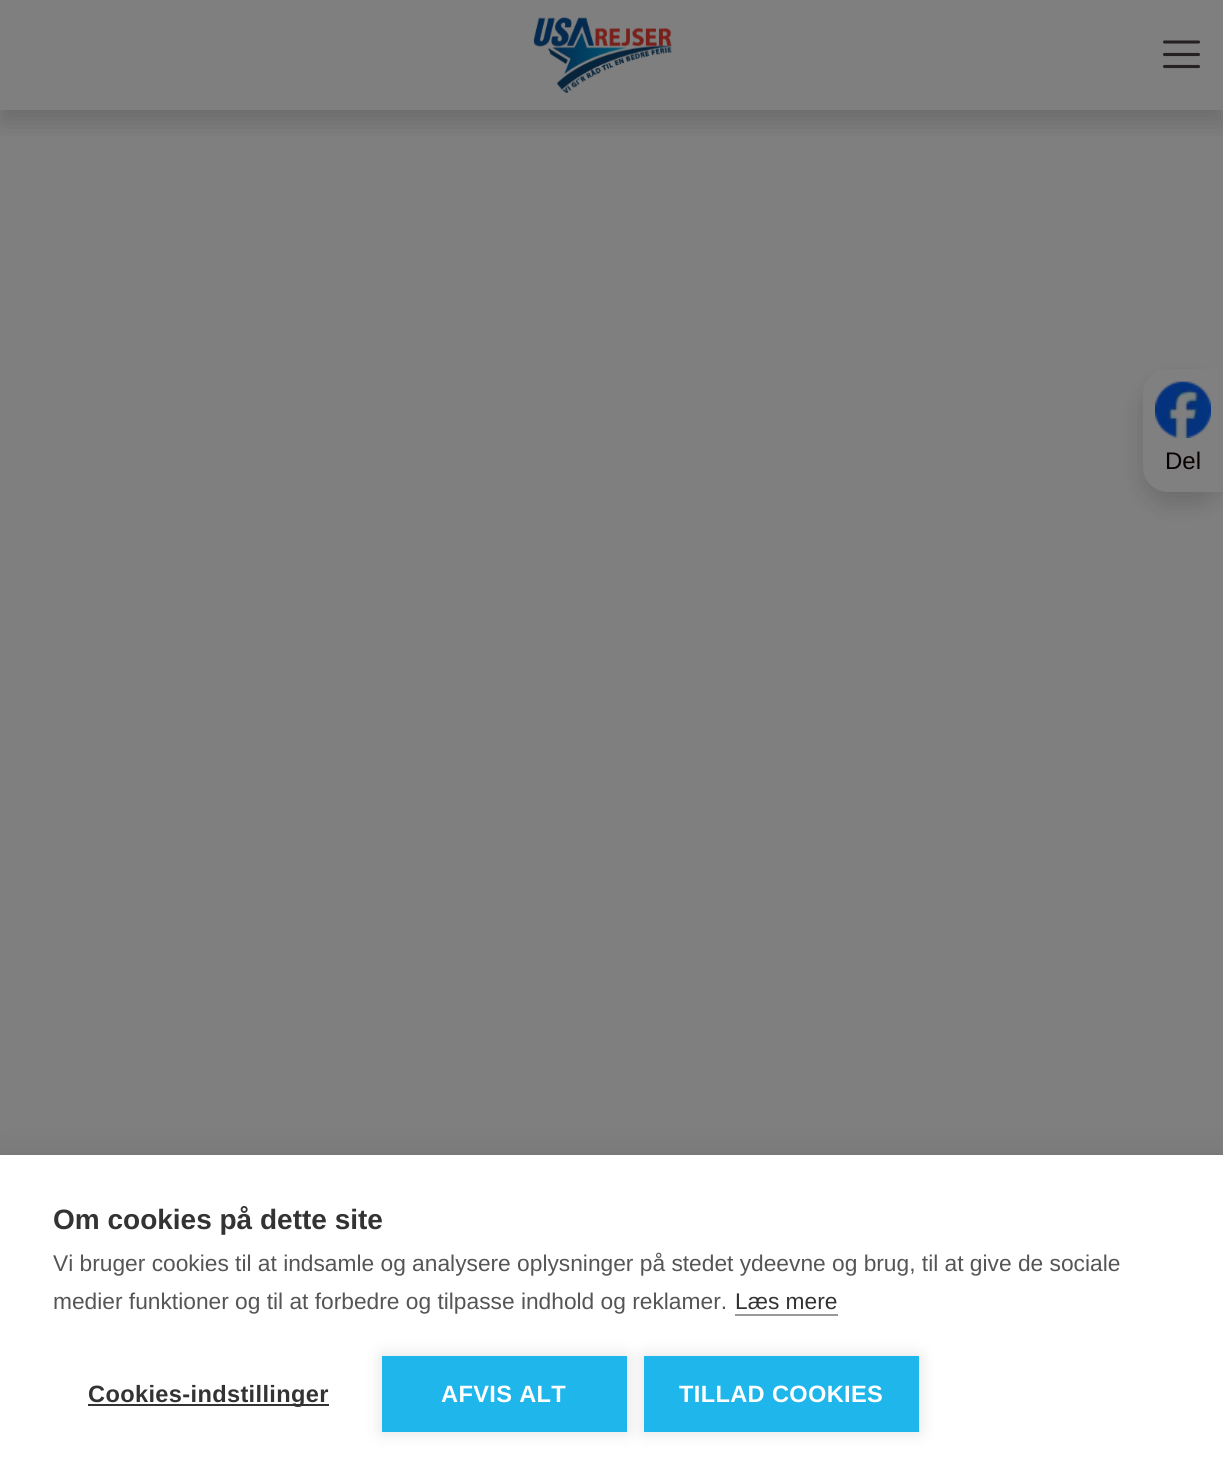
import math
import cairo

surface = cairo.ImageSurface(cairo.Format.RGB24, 1223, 1474)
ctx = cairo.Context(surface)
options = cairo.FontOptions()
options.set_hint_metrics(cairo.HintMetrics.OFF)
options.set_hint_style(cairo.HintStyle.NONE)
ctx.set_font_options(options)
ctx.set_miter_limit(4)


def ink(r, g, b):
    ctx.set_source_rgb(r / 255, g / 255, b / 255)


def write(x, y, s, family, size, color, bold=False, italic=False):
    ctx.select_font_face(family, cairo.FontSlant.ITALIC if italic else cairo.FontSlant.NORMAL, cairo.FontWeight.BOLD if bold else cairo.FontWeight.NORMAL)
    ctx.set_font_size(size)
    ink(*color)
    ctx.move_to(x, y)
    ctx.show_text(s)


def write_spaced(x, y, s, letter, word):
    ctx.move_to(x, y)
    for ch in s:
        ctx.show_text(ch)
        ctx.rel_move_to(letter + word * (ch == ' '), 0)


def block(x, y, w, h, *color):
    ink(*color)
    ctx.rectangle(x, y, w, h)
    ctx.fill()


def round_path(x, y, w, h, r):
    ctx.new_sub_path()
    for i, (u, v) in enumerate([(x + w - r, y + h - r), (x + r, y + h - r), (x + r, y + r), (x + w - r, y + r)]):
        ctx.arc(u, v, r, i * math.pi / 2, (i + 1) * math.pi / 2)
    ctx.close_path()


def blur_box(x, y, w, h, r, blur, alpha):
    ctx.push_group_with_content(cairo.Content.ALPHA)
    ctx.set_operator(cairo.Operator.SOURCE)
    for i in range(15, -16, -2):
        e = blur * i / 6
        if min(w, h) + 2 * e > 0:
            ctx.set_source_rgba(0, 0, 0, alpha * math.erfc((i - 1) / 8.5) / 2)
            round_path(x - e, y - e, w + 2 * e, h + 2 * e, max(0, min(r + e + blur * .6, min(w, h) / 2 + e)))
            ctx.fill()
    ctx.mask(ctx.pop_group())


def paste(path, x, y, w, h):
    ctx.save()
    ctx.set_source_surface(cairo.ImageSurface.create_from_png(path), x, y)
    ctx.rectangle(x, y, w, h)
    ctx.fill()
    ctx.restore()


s1 = dict(family="Liberation Sans", size=24, color=(7, 1, 1))
s2 = dict(family="Liberation Sans", size=28, color=(51, 51, 51), bold=True)
s3 = dict(family="Liberation Sans", size=22.75, color=(85, 85, 85))
s4 = dict(family="Liberation Sans", size=22.75, color=(51, 51, 51))

ink(127, 127, 127)
ctx.paint()
ctx.save()
ctx.rectangle(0, 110, 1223, 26)
ctx.clip()
ink(7, 2, 1)
blur_box(0, 12, 1223, 111, 0, 12, 0.15)
ctx.restore()
paste("pic1.png", 533, 17, 139, 76)
ctx.new_path()
ctx.move_to(1164.5, 42)
ctx.line_to(1198.5, 42)
ctx.move_to(1164.5, 54.5)
ctx.line_to(1198.5, 54.5)
ctx.move_to(1164.5, 66.5)
ctx.line_to(1198.5, 66.5)
ink(37, 33, 33)
ctx.set_line_width(3.1)
ctx.set_line_cap(cairo.LineCap.ROUND)
ctx.stroke()
ink(7, 2, 1)
blur_box(1143, 382, 80, 122, 25, 12, 0.15)
ink(128, 128, 128)
ctx.new_path()
ctx.move_to(1168, 369)
ctx.line_to(1223, 369)
ctx.line_to(1223, 492)
ctx.line_to(1168, 492)
ctx.curve_to(1154, 492, 1143, 481, 1143, 467)
ctx.line_to(1143, 394)
ctx.curve_to(1143, 380, 1154, 369, 1168, 369)
ctx.close_path()
ctx.fill()
paste("pic2.png", 1155, 381, 56, 57)
write(1165, 469, "Del", **s1)
ink(0, 0, 0)
blur_box(0, 1155, 1223, 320, 0, 17.5, 0.1)
block(0, 1155, 1223, 319, 255, 255, 255)
write(53, 1229, "Om cookies på dette site", **s2)
write(53, 1271, "Vi bruger cookies til at indsamle og analysere oplysninger på stedet ydeevne og brug, til at give de sociale", **s3)
write(53, 1309, "medier funktioner og til at forbedre og tilpasse indhold og reklamer.", **s3)
write(735, 1309, "Læs mere", **s4)
block(735, 1314, 103, 2, 153, 153, 153)
block(88, 1404, 241, 2, 51, 51, 51)
ctx.select_font_face("Liberation Sans", cairo.FontSlant.NORMAL, cairo.FontWeight.BOLD)
ctx.set_font_size(23.6)
write_spaced(88, 1402, "Cookies-indstillinger", 0.35, 0)
ink(0, 0, 0)
blur_box(382, 1356, 245, 76, 0, 9, 0.12)
block(382, 1356, 245, 76, 30, 182, 235)
ink(255, 255, 255)
write_spaced(441, 1402, "AFVIS ALT", 0.35, 0)
ink(0, 0, 0)
blur_box(644, 1356, 275, 76, 0, 9, 0.12)
block(644, 1356, 275, 76, 30, 182, 235)
ink(255, 255, 255)
write_spaced(679, 1402, "TILLAD COOKIES", 0.35, 0)
surface.write_to_png("screenshot.png")
